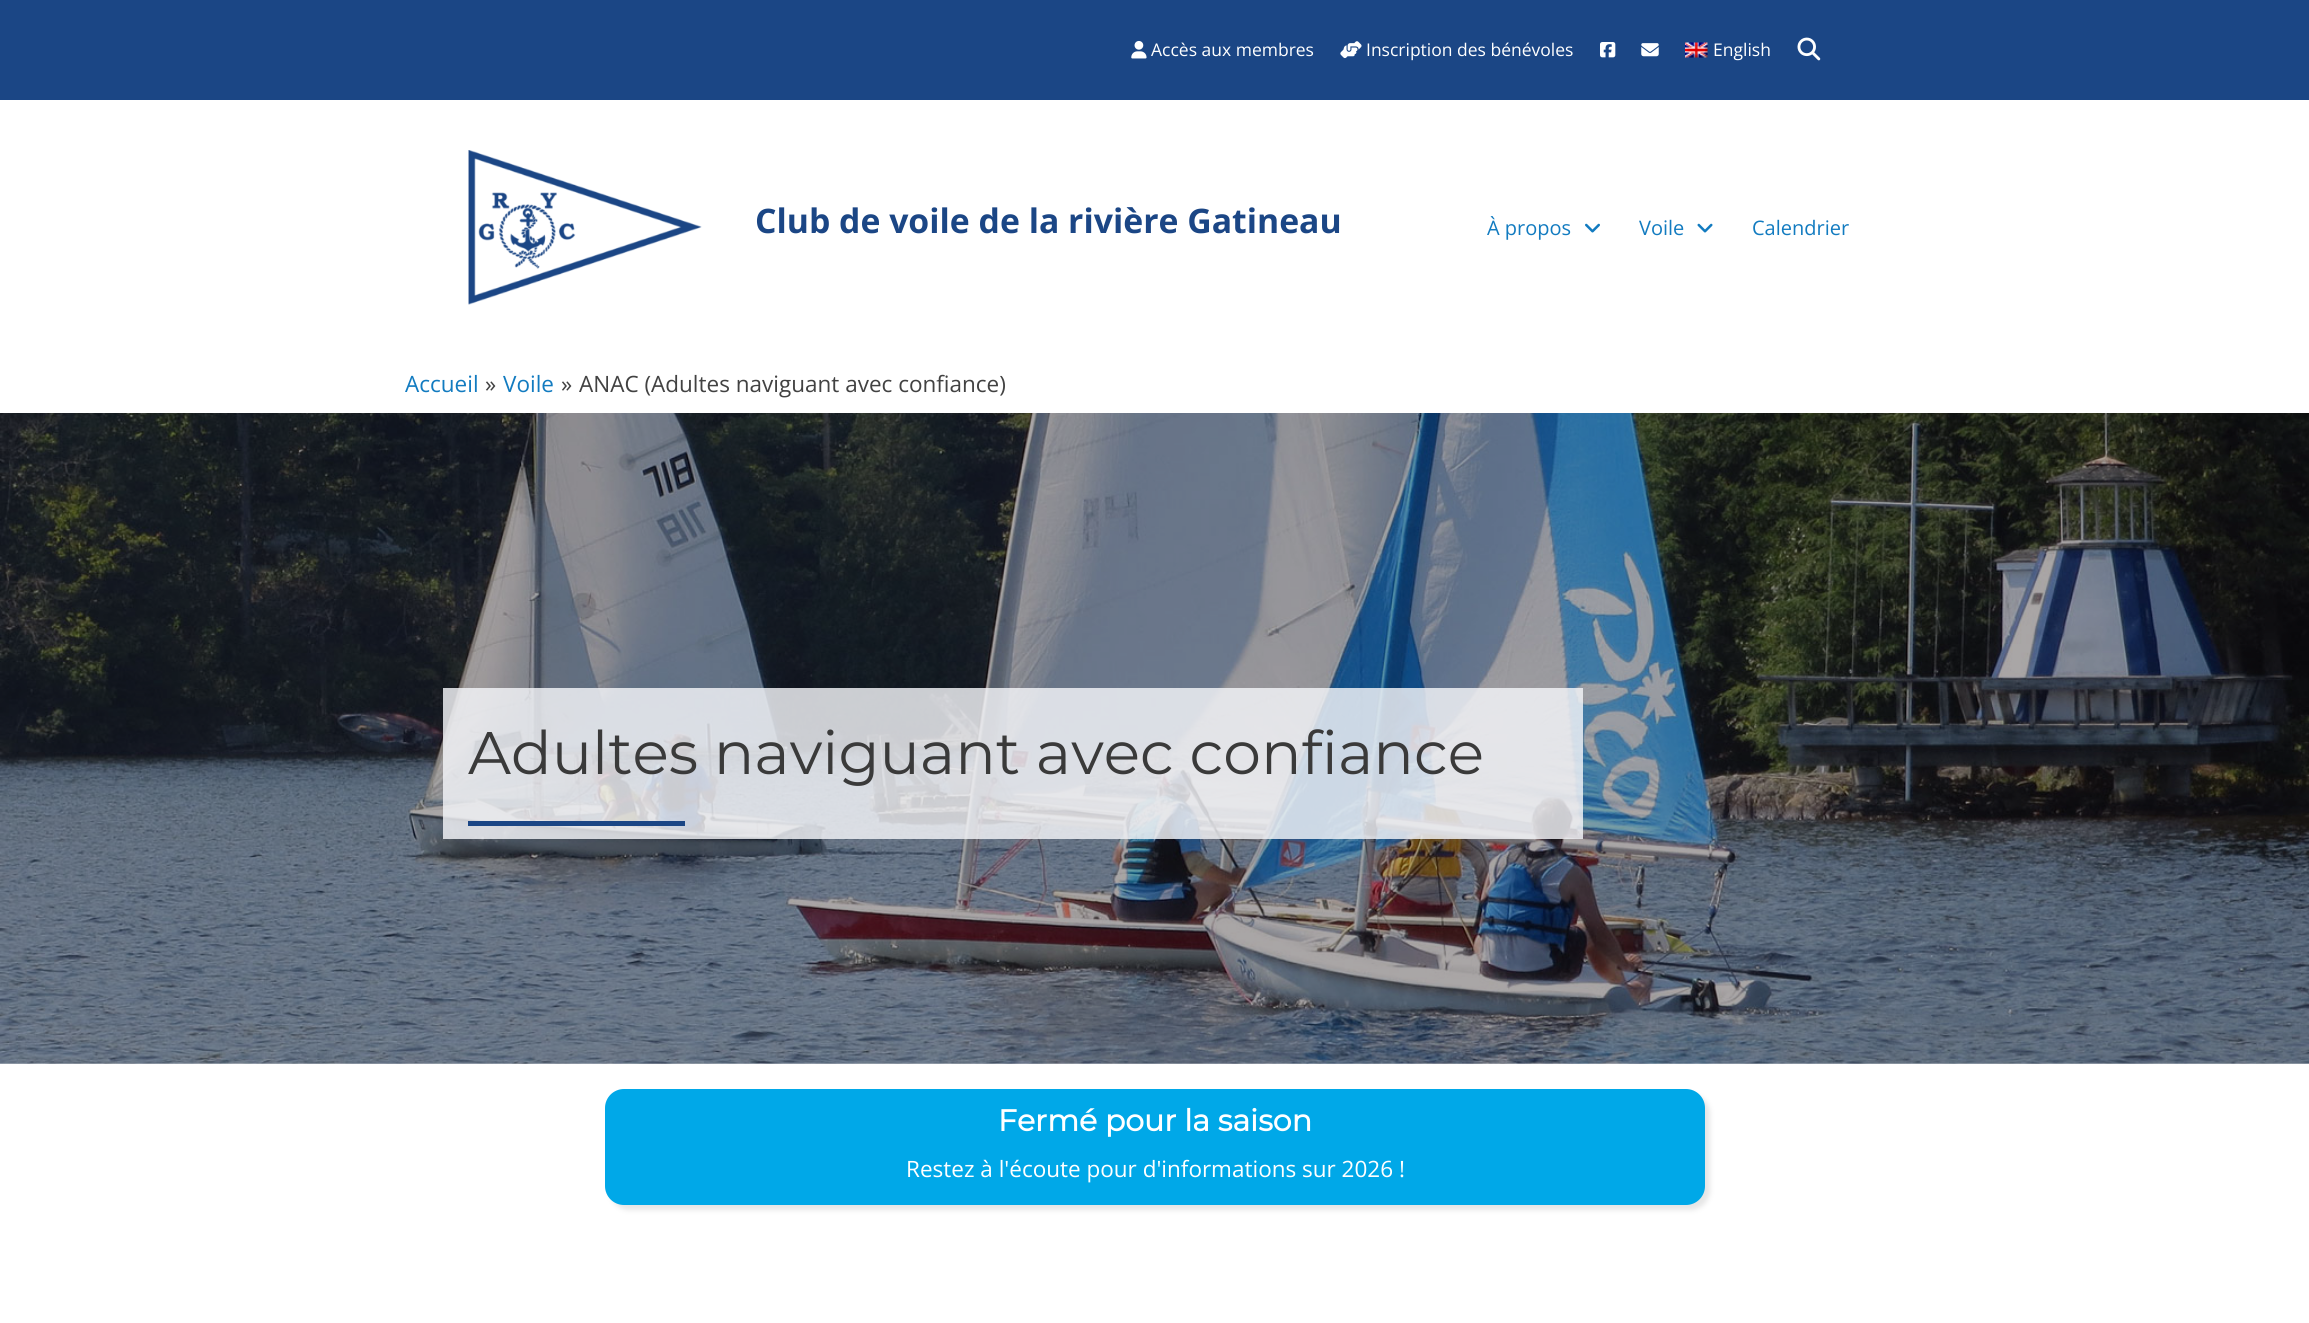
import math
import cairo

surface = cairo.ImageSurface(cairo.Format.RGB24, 2309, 1323)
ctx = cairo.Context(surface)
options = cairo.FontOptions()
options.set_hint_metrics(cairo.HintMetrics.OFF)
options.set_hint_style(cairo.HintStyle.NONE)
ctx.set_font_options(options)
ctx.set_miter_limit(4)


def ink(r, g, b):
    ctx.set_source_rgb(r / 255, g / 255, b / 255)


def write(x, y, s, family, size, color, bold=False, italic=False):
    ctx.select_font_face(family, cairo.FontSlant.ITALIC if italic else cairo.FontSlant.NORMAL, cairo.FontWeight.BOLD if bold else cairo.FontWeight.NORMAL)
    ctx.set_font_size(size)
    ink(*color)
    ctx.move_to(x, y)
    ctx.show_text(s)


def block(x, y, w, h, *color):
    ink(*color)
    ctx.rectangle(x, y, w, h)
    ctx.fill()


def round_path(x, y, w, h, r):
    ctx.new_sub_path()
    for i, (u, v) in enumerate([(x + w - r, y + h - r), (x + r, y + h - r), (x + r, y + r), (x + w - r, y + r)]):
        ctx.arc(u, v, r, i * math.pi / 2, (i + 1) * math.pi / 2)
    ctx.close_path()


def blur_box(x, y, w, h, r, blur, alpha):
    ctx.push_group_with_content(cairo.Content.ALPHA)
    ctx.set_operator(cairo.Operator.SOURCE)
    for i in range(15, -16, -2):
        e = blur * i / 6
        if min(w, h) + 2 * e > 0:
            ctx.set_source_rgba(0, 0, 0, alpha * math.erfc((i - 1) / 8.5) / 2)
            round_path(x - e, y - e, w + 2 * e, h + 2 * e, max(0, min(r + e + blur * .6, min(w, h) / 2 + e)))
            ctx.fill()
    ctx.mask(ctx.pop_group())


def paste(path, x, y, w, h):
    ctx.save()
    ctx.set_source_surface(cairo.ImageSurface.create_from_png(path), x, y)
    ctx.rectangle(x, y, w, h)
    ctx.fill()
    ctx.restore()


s1 = dict(family="Open Sans", size=17.5, color=(255, 255, 255))
s2 = dict(family="Open Sans", size=33.75, color=(27, 70, 133), bold=True)
s3 = dict(family="Open Sans", size=20, color=(18, 123, 192))
s4 = dict(family="Open Sans", size=22.5, color=(18, 123, 192))
s5 = dict(family="Open Sans", size=22.5, color=(66, 66, 66))
s6 = dict(family="Montserrat Thin", size=60, color=(58, 58, 58))
s7 = dict(family="Montserrat", size=30, color=(255, 255, 255), bold=True)
s8 = dict(family="Open Sans", size=22.5, color=(255, 255, 255))

ink(255, 255, 255)
ctx.paint()
block(0, 0, 2309, 100, 27, 70, 133)
paste("pic1.png", 1131, 40, 16, 19)
write(1151, 56, "Accès aux membres", **s1)
paste("pic2.png", 1340, 41, 22, 18)
write(1366, 56, "Inscription des bénévoles", **s1)
paste("pic3.png", 1600, 42, 16, 16)
paste("pic4.png", 1641, 43, 18, 14)
paste("pic5.png", 1685, 42, 23, 16)
write(1713, 56, "English", **s1)
paste("pic6.png", 1797, 37, 24, 24)
paste("pic7.png", 468, 150, 234, 155)
write(755, 233, "Club de voile de la rivière Gatineau", **s2)
write(1487, 235, "À propos", **s3)
paste("pic8.png", 1585, 223, 15, 10)
write(1639, 235, "Voile", **s3)
paste("pic9.png", 1697, 223, 16, 10)
write(1752, 235, "Calendrier", **s3)
write(405, 392, "Accueil", **s4)
write(485, 392, "»", **s5)
write(503, 392, "Voile", **s4)
write(561, 392, "»", **s5)
write(579, 392, "ANAC (Adultes naviguant avec confiance)", **s5)
paste("pic10.png", 0, 413, 2309, 651)
ctx.set_source_rgba(0.957, 0.961, 0.976, 0.82)
ctx.rectangle(443, 688, 1140, 151)
ctx.fill()
write(468, 774, "Adultes naviguant avec confiance", **s6)
block(468, 821, 217, 5, 27, 70, 133)
ink(230, 230, 230)
blur_box(610, 1094, 1100, 116, 19, 2.5, 1)
ink(0, 168, 232)
round_path(605, 1089, 1100, 116, 19)
ctx.fill()
write(998, 1131, "Fermé pour la saison", **s7)
write(906, 1177, "Restez à l'écoute pour d'informations sur 2026 !", **s8)
surface.write_to_png("screenshot.png")
